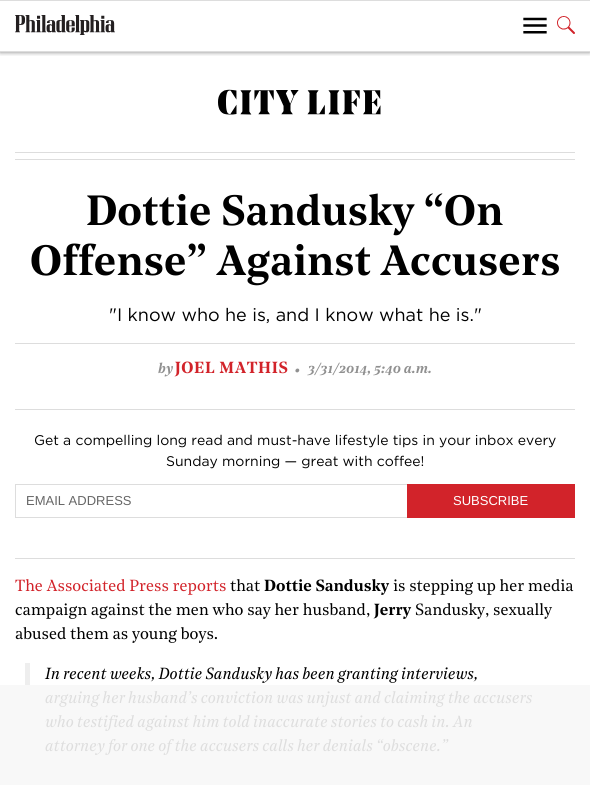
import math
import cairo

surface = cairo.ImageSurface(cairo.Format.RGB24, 590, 785)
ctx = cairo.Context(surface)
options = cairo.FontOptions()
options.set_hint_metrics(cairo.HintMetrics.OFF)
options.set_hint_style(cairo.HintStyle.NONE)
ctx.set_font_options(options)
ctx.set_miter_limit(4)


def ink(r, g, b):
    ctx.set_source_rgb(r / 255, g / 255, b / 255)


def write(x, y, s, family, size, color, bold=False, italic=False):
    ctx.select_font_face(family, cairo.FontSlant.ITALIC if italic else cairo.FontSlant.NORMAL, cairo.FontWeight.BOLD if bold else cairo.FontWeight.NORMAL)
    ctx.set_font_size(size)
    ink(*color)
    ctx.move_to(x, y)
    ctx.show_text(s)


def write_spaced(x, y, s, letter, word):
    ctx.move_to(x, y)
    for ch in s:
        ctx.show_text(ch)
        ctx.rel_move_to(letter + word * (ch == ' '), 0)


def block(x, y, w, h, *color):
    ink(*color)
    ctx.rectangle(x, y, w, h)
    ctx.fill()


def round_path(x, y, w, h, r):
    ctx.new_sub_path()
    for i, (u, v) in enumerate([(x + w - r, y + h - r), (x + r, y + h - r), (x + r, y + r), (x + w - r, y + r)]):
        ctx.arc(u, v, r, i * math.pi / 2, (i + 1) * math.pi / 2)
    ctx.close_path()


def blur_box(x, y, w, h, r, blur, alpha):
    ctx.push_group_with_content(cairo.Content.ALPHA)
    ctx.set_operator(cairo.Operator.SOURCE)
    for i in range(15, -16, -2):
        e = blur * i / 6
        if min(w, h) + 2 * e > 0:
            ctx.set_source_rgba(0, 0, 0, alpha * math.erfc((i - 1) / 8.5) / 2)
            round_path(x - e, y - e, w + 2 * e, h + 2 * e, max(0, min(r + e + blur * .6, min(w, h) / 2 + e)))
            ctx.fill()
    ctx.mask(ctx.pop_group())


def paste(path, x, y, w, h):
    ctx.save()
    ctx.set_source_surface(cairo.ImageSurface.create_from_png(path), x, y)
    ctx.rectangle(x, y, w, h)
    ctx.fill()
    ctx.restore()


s1 = dict(family="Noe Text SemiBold", size=42, color=(0, 0, 0))
s2 = dict(family="Gotham", size=18, color=(0, 0, 0))
s3 = dict(family="Noe Text SemiBold", size=14, color=(144, 144, 144), italic=True)
s4 = dict(family="Noe Text SemiBold", size=22, color=(144, 144, 144), italic=True)
s5 = dict(family="Gotham", size=14, color=(0, 0, 0))
s6 = dict(family="Liberation Sans", size=13, color=(102, 102, 102))
s7 = dict(family="Liberation Sans", size=13, color=(255, 255, 255))
s8 = dict(family="Noe Text", size=16, color=(210, 35, 42))
s9 = dict(family="Noe Text", size=16, color=(0, 0, 0))
s10 = dict(family="Noe Text SemiBold", size=16, color=(0, 0, 0))
s11 = dict(family="Noe Text", size=16, color=(0, 0, 0), italic=True)
s12 = dict(family="Noe Text", size=16, color=(222, 222, 222), italic=True)

ink(255, 255, 255)
ctx.paint()
block(0, 685, 590, 100, 248, 248, 248)
ctx.save()
ctx.rectangle(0, 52, 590, 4)
ctx.clip()
ink(0, 0, 0)
blur_box(0, 0, 590, 52, 0, 2.5, 0.5)
ctx.restore()
block(0, 0, 590, 1, 221, 221, 221)
block(0, 51, 590, 1, 221, 221, 221)
paste("pic1.png", 15, 15, 100, 20)
paste("pic2.png", 523, 17, 24, 17)
paste("pic3.png", 557, 16, 18, 18)
paste("pic4.png", 218, 89, 163, 26)
block(15, 152, 560, 1, 221, 221, 221)
block(15, 159, 560, 1, 221, 221, 221)
write(86, 225, "Dottie Sandusky “On", **s1)
write(30, 275, "Offense” Against Accusers", **s1)
write(109, 321, "\"I know who he is, and I know what he is.\"", **s2)
block(15, 343, 560, 1, 221, 221, 221)
block(15, 409, 560, 1, 221, 221, 221)
write(158, 373, "by", **s3)
ctx.select_font_face("Noe Text SemiBold")
ctx.set_font_size(16)
ink(210, 35, 42)
write_spaced(175, 373, "JOEL MATHIS", 0.6, 0)
write(294, 377, "·", **s4)
write(308, 373, "3/31/2014, 5:40 a.m.", **s3)
block(15, 558, 560, 1, 221, 221, 221)
write(34, 445, "Get a compelling long read and must-have lifestyle tips in your inbox every", **s5)
write(166, 466, "Sunday morning — great with coffee!", **s5)
ctx.rectangle(15.5, 484.5, 559, 33)
ink(221, 221, 221)
ctx.set_line_width(1)
ctx.stroke()
write(26, 505, "EMAIL ADDRESS", **s6)
block(407, 484, 168, 34, 210, 35, 42)
write(453, 505, "SUBSCRIBE", **s7)
write(15, 591, "The Associated Press reports", **s8)
write(230, 591, "that", **s9)
write(264, 591, "Dottie Sandusky", **s10)
write(393, 591, "is stepping up her media", **s9)
write(15, 615, "campaign against the men who say her husband,", **s9)
write(374, 615, "Jerry", **s10)
write(415, 615, "Sandusky, sexually", **s9)
write(15, 639, "abused them as young boys.", **s9)
block(25, 663, 5, 22, 238, 238, 238)
write(45, 679, "In recent weeks, Dottie Sandusky has been granting interviews,", **s11)
write(45, 703, "arguing her husband’s conviction was unjust and claiming the accusers", **s12)
write(45, 727, "who testified against him told inaccurate stories to cash in. An", **s12)
write(45, 751, "attorney for one of the accusers calls her denials “obscene.”", **s12)
surface.write_to_png("screenshot.png")
